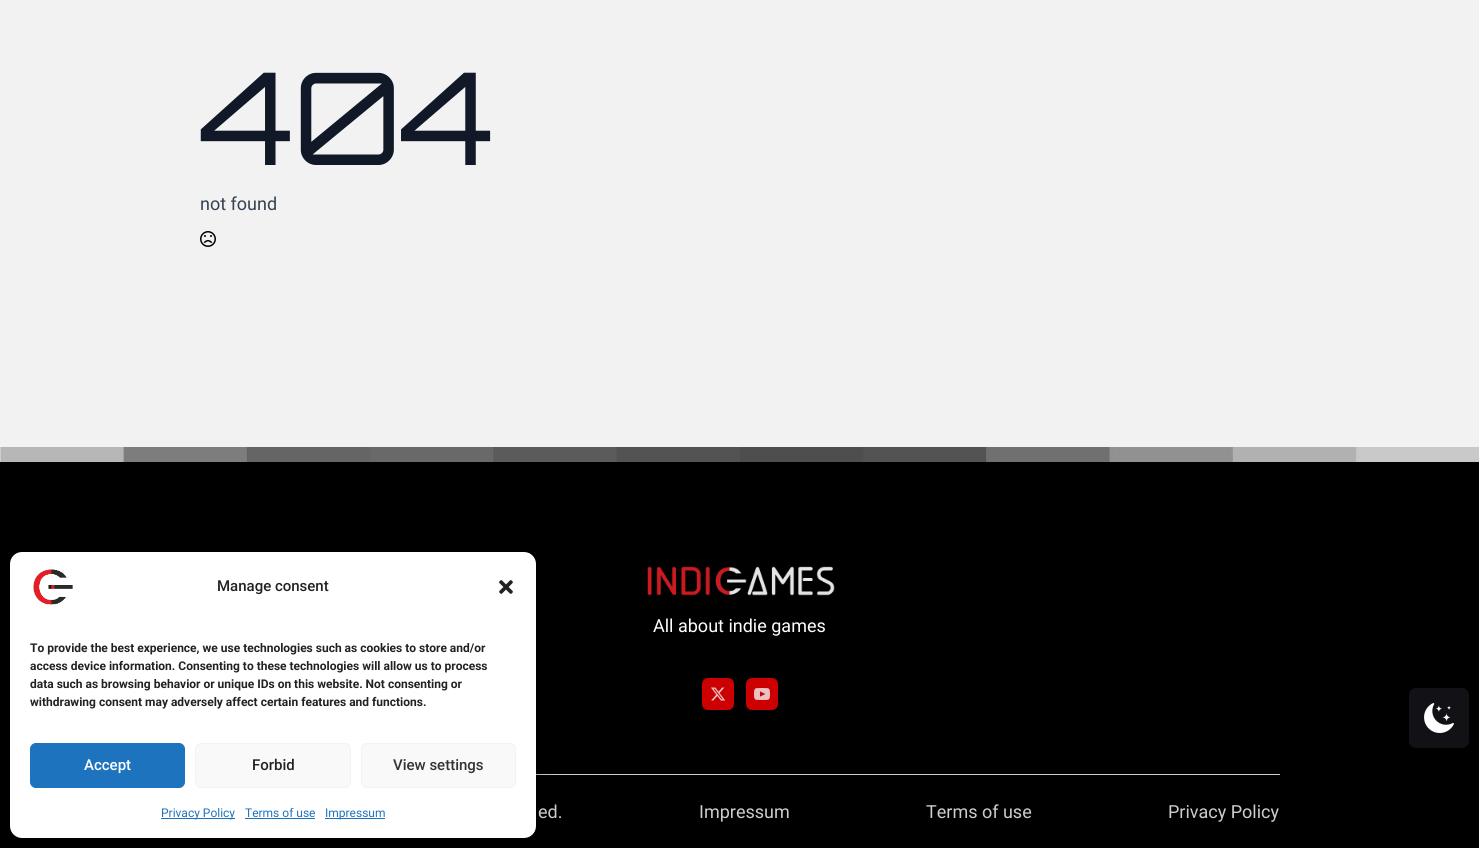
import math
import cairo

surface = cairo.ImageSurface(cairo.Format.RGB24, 1479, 848)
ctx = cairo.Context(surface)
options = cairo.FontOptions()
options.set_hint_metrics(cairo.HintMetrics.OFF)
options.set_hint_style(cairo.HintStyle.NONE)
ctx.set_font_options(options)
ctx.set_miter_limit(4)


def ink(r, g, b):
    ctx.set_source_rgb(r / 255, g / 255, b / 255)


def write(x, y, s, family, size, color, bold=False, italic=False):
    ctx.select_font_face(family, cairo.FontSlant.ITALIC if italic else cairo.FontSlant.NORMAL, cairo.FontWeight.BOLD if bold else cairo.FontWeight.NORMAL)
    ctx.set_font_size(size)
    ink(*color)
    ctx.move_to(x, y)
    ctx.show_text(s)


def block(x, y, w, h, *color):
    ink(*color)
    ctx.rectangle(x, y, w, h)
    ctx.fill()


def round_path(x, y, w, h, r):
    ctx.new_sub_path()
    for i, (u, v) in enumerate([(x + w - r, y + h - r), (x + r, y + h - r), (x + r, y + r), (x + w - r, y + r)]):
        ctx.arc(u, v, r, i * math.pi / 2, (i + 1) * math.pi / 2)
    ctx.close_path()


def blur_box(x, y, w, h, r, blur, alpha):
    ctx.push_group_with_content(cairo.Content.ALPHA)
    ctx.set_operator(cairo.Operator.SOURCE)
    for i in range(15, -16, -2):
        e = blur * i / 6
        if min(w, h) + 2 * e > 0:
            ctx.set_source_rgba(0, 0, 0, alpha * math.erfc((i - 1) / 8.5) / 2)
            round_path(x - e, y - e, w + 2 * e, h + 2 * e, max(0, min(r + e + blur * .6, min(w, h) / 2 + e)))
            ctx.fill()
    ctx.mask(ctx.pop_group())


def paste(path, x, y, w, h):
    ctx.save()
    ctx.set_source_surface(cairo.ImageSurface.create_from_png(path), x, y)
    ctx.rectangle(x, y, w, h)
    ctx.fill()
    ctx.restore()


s1 = dict(family="Orbitron", size=128, color=(17, 24, 39))
s2 = dict(family="Roboto", size=18, color=(55, 65, 81))
s3 = dict(family="Roboto Medium", size=15, color=(34, 34, 34))
s4 = dict(family="Roboto", size=12, color=(34, 34, 34), bold=True)
s5 = dict(family="Roboto Medium", size=15, color=(255, 255, 255))
s6 = dict(family="Roboto Medium", size=15, color=(51, 51, 51))
s7 = dict(family="Roboto", size=12, color=(30, 115, 190))
s8 = dict(family="Roboto", size=18, color=(255, 255, 255))
s9 = dict(family="Roboto", size=18, color=(206, 205, 205))

ink(242, 242, 242)
ctx.paint()
write(200, 165, "404", **s1)
write(200, 210, "not found", **s2)
paste("pic1.png", 200, 231, 16, 16)
paste("pic2.png", 0, 447, 1479, 15)
block(0, 462, 1479, 386, 0, 0, 0)
block(536, 774, 744, 1, 206, 205, 205)
ink(0, 0, 0)
blur_box(10, 558, 526, 286, 12, 3, 0.23)
blur_box(10, 562, 526, 286, 12, 10, 0.19)
ink(255, 255, 255)
round_path(10, 552, 526, 286, 12)
ctx.fill()
paste("pic3.png", 33, 569, 40, 36)
write(217, 591, "Manage consent", **s3)
paste("pic4.png", 499, 580, 14, 14)
write(30, 652, "To provide the best experience, we use technologies such as cookies to store and/or", **s4)
write(30, 670, "access device information. Consenting to these technologies will allow us to process", **s4)
write(30, 688, "data such as browsing behavior or unique IDs on this website. Not consenting or", **s4)
write(30, 706, "withdrawing consent may adversely affect certain features and functions.", **s4)
ink(30, 115, 190)
round_path(30.5, 743.5, 154, 44, 5.5)
ctx.fill_preserve()
ctx.set_line_width(1)
ctx.stroke()
write(84, 770, "Accept", **s5)
ink(249, 249, 249)
round_path(195.5, 743.5, 155, 44, 5.5)
ctx.fill_preserve()
ink(242, 242, 242)
ctx.stroke()
write(252, 770, "Forbid", **s3)
ink(249, 249, 249)
round_path(361.5, 743.5, 154, 44, 5.5)
ctx.fill_preserve()
ink(242, 242, 242)
ctx.stroke()
write(393, 770, "View settings", **s6)
block(161, 818, 74, 1, 30, 115, 190)
write(161, 817, "Privacy Policy", **s7)
write(245, 817, "Terms of use", **s7)
block(245, 818, 70, 1, 30, 115, 190)
block(325, 818, 60, 1, 30, 115, 190)
write(325, 817, "Impressum", **s7)
paste("pic5.png", 647, 566, 188, 30)
write(653, 632, "All about indie games", **s8)
ink(204, 0, 0)
round_path(702, 678, 32, 32, 6)
ctx.fill()
paste("pic6.png", 711, 687, 15, 14)
round_path(746, 678, 32, 32, 6)
ctx.fill()
paste("pic7.png", 754, 688, 16, 12)
write(538, 818, "ed.", **s9)
write(699, 818, "Impressum", **s9)
write(926, 818, "Terms of use", **s9)
write(1168, 818, "Privacy Policy", **s9)
ink(18, 17, 22)
round_path(1409, 688, 60, 60, 7)
ctx.fill()
paste("pic8.png", 1424, 703, 30, 30)
surface.write_to_png("screenshot.png")
